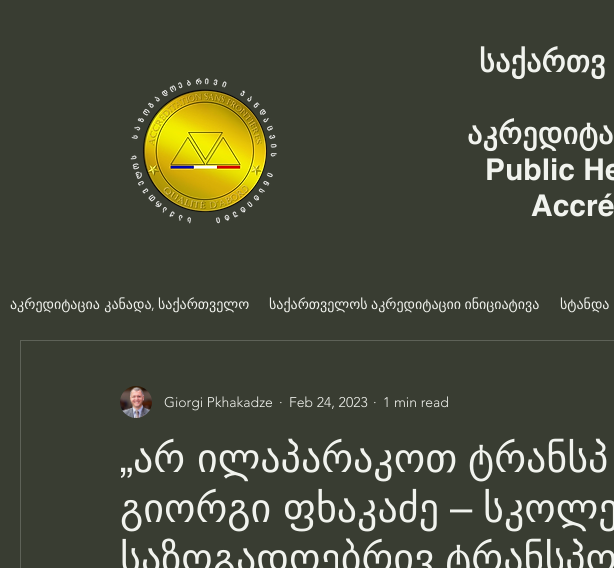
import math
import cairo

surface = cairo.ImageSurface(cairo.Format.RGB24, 614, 568)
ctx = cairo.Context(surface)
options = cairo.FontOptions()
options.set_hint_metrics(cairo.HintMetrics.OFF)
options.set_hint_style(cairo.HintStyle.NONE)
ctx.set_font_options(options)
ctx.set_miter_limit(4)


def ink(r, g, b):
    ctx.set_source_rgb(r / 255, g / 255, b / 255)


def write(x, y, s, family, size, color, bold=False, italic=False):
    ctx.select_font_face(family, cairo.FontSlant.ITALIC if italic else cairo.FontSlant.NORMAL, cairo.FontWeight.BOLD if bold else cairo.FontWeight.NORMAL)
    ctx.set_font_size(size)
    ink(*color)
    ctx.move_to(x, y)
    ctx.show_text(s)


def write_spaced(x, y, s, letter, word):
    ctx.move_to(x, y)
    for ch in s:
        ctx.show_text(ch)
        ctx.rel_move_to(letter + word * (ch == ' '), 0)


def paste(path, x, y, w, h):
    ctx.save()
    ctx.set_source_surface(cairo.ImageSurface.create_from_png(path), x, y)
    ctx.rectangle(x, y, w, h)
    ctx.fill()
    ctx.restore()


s1 = dict(family="helvetica", size=30, color=(241, 243, 238), bold=True)
s2 = dict(family="DejaVu Sans", size=14, color=(241, 243, 238))
s3 = dict(family="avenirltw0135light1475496 Light", size=14, color=(241, 243, 238))
s4 = dict(family="helvetica", size=40, color=(241, 243, 238))
s5 = dict(family="DejaVu Sans", size=40, color=(241, 243, 238))

ink(57, 61, 50)
ctx.paint()
paste("pic1.png", 130, 78, 147, 146)
ctx.select_font_face("DejaVu Sans", cairo.FontSlant.NORMAL, cairo.FontWeight.BOLD)
ctx.set_font_size(30)
ink(241, 243, 238)
write_spaced(479, 72, "საქართვ", 0.25, -1)
write_spaced(467, 144, "აკრედიტა", 0.25, -1)
write(485, 180, "Public He", **s1)
write(531, 216, "Accré", **s1)
write(10, 309, "აკრედიტაცია კანადა", **s2)
write(151, 309, ",", **s3)
write(158, 309, "საქართველო", **s2)
write_spaced(269, 309, "საქართველოს აკრედიტაციი ინიციატივა", 0, -1)
write(560, 309, "სტანდა", **s2)
ctx.rectangle(20.5, 340.5, 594, 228)
ink(94, 98, 88)
ctx.set_line_width(1)
ctx.stroke()
paste("pic2.png", 120, 386, 32, 32)
write(164, 407, "Giorgi Pkhakadze", **s3)
write(279, 407, "·", **s3)
write(289, 407, "Feb 24, 2023", **s3)
write(373, 407, "·", **s3)
write(383, 407, "1 min read", **s3)
write(120, 472, "„", **s4)
write(133, 472, "არ", **s5)
write(197, 472, "ილაპარაკოთ", **s5)
write(468, 472, "ტრანსპ", **s5)
write_spaced(120, 522, "გიორგი ფხაკაძე", 0, -1)
write(450, 522, "–", **s4)
write(483, 522, "სკოლე", **s5)
write_spaced(120, 572, "საზოგადოებრივ ტრანსპო", 0, -2)
surface.write_to_png("screenshot.png")
